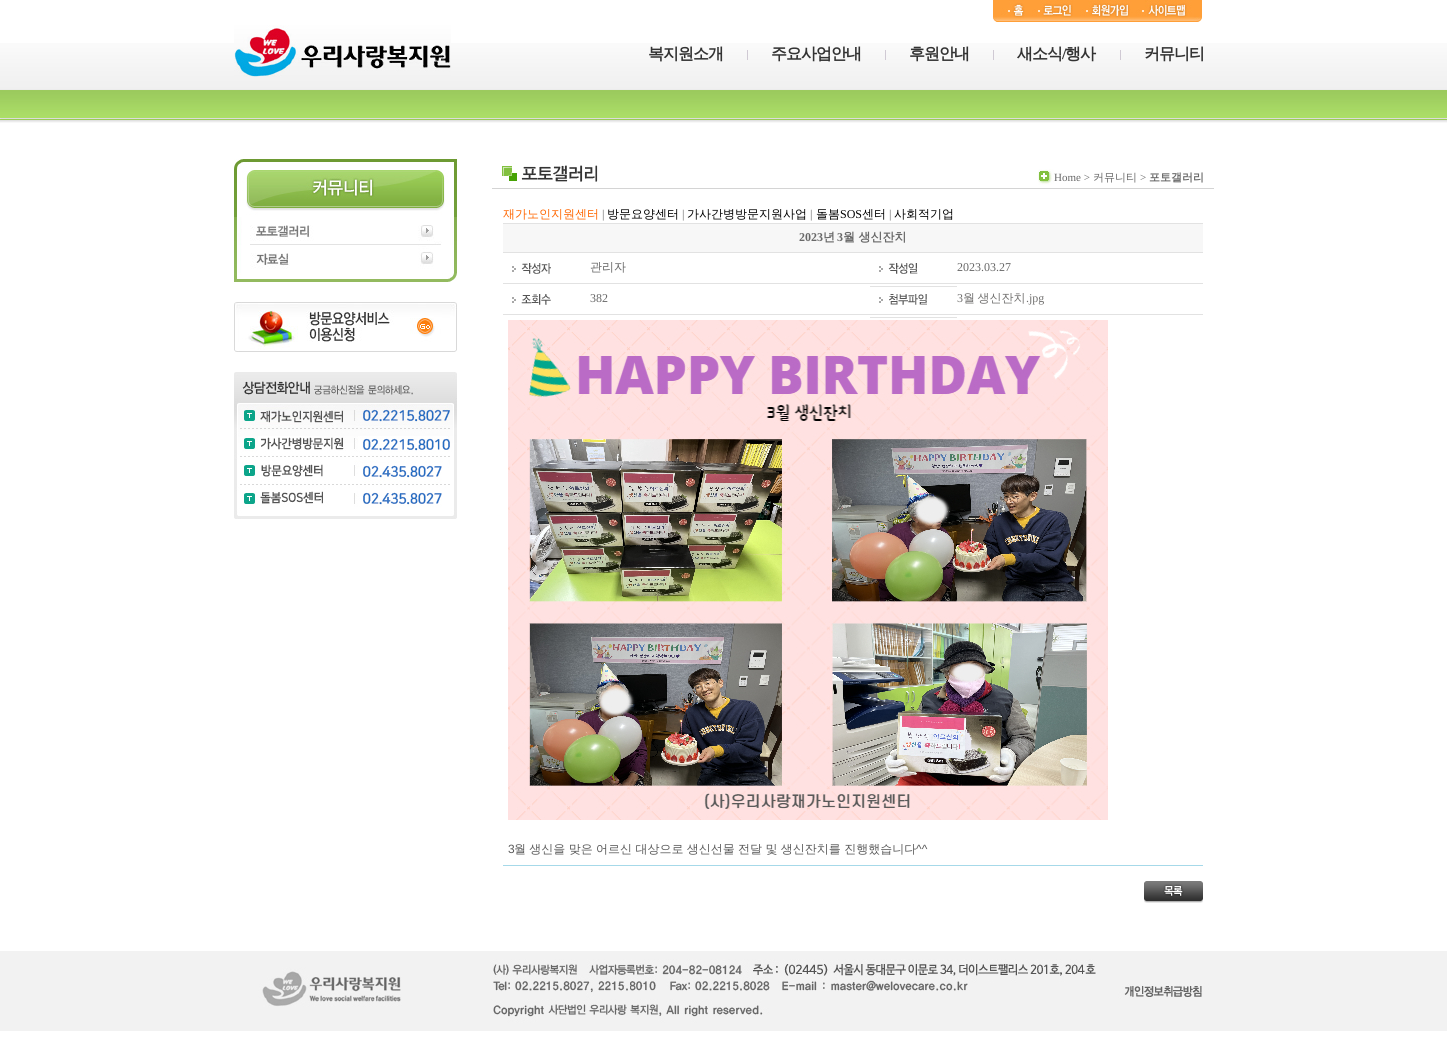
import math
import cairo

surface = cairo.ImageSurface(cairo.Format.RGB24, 1447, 1064)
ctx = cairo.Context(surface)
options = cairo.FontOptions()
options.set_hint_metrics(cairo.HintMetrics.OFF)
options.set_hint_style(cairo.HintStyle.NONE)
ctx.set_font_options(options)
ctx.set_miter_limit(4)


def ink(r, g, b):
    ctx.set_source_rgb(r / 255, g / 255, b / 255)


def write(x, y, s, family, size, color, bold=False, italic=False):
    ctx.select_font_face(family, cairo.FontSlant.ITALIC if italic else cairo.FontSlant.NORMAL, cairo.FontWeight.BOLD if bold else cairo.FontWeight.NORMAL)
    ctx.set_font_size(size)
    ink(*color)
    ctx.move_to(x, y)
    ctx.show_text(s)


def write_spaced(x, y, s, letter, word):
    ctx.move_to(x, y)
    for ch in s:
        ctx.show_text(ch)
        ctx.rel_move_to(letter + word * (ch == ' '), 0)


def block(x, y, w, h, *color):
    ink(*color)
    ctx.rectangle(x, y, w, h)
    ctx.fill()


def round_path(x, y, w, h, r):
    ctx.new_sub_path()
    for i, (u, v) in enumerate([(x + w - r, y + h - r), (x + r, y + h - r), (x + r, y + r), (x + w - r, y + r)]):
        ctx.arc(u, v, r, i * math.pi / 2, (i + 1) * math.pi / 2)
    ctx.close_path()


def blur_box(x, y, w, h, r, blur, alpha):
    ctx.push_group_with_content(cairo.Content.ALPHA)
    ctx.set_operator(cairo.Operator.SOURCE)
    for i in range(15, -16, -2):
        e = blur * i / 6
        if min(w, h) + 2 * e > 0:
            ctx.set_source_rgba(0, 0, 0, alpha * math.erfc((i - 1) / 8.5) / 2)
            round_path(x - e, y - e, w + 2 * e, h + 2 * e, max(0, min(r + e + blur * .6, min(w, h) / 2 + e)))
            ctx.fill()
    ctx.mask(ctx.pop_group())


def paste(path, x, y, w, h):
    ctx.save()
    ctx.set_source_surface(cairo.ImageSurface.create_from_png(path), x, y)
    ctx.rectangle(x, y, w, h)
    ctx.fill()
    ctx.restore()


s1 = dict(family="Liberation Serif", size=11, color=(104, 104, 104))
s2 = dict(family="WenQuanYi Zen Hei Medium", size=11, color=(104, 104, 104))
s3 = dict(family="WenQuanYi Zen Hei", size=11, color=(104, 104, 104), bold=True)
s4 = dict(family="WenQuanYi Zen Hei Medium", size=12, color=(255, 102, 0))
s5 = dict(family="Liberation Serif", size=12, color=(104, 104, 104))
s6 = dict(family="WenQuanYi Zen Hei Medium", size=12, color=(0, 0, 0))
s7 = dict(family="Liberation Serif", size=12, color=(0, 0, 0))
s8 = dict(family="Liberation Serif", size=12, color=(104, 104, 104), bold=True)
s9 = dict(family="WenQuanYi Zen Hei", size=12, color=(104, 104, 104), bold=True)
s10 = dict(family="WenQuanYi Zen Hei Medium", size=12, color=(104, 104, 104))
s11 = dict(family="Liberation Serif", size=12, color=(113, 112, 111))
s12 = dict(family="Liberation Sans", size=12, color=(89, 89, 89))

ink(255, 255, 255)
ctx.paint()
paste("pic1.png", 0, 44, 1447, 79)
paste("pic2.png", 993, 0, 39, 22)
paste("pic3.png", 1032, 0, 48, 22)
paste("pic4.png", 1080, 0, 56, 22)
paste("pic5.png", 1136, 0, 66, 22)
block(0, 43, 1447, 1, 250, 250, 250)
block(0, 118, 1447, 1, 255, 255, 255)
paste("pic6.png", 234, 25, 217, 52)
block(747, 50, 1, 10, 208, 202, 212)
ctx.select_font_face("WenQuanYi Zen Hei", cairo.FontSlant.NORMAL, cairo.FontWeight.BOLD)
ctx.set_font_size(16)
ink(51, 51, 51)
write_spaced(648, 59, "복지원소개", -1, 0)
block(885, 50, 1, 10, 208, 202, 212)
ink(51, 51, 51)
write_spaced(771, 59, "주요사업안내", -1, 0)
block(993, 50, 1, 10, 208, 202, 212)
ink(51, 51, 51)
write_spaced(909, 59, "후원안내", -1, 0)
block(1120, 50, 1, 10, 208, 202, 212)
ink(51, 51, 51)
write_spaced(1017, 59, "새소식", -1, 0)
ctx.select_font_face("Liberation Serif", cairo.FontSlant.NORMAL, cairo.FontWeight.BOLD)
write_spaced(1062, 59, "/", -1, 0)
ctx.select_font_face("WenQuanYi Zen Hei", cairo.FontSlant.NORMAL, cairo.FontWeight.BOLD)
write_spaced(1065, 59, "행사", -1, 0)
write_spaced(1144, 59, "커뮤니티", -1, 0)
ink(0, 0, 0)
blur_box(0, 91, 1447, 28, 0, 1, 0.2)
paste("pic7.png", 0, 90, 1447, 28)
paste("pic8.png", 234, 159, 223, 58)
paste("pic9.png", 234, 217, 223, 28)
paste("pic10.png", 234, 245, 223, 28)
paste("pic11.png", 234, 273, 223, 9)
paste("pic12.png", 234, 302, 223, 50)
paste("pic13.png", 234, 372, 223, 147)
block(492, 188, 722, 1, 212, 212, 212)
paste("pic14.png", 501, 160, 97, 22)
paste("pic15.png", 1038, 169, 16, 16)
write(1054, 181, "Home >", **s1)
write(1093, 181, "커뮤니티", **s2)
write(1140, 181, ">", **s1)
write(1149, 181, "포토갤러리", **s3)
write(503, 218, "재가노인지원센터", **s4)
write(602, 218, "|", **s5)
write(607, 218, "방문요양센터", **s6)
write(682, 218, "|", **s5)
write(687, 218, "가사간병방문지원사업", **s6)
write(810, 218, "|", **s5)
write(816, 218, "돌봄", **s6)
write(840, 218, "SOS", **s7)
write(862, 218, "센터", **s6)
write(889, 218, "|", **s5)
write(894, 218, "사회적기업", **s6)
block(503, 224, 700, 28, 247, 247, 247)
block(503, 223, 700, 1, 226, 226, 226)
block(503, 252, 700, 1, 226, 226, 226)
write(799, 241, "2023", **s8)
write(823, 241, "년", **s9)
write(837, 241, "3", **s8)
write(843, 241, "월 생신잔치", **s9)
write(590, 271, "관리자", **s10)
block(503, 283, 700, 1, 226, 226, 226)
paste("pic16.png", 512, 263, 39, 11)
paste("pic17.png", 879, 263, 39, 11)
block(870, 286, 87, 1, 226, 226, 226)
write(957, 271, "2023.03.27", **s5)
write(957, 302, "3", **s11)
ctx.select_font_face("WenQuanYi Zen Hei Medium")
write_spaced(963, 302, "월 생신잔치", 0, -1)
write(1026, 302, ".jpg", **s11)
block(503, 314, 700, 1, 226, 226, 226)
paste("pic18.png", 512, 294, 39, 11)
write(590, 302, "382", **s5)
paste("pic19.png", 879, 294, 48, 11)
block(870, 317, 87, 1, 226, 226, 226)
block(503, 865, 700, 1, 166, 217, 233)
paste("pic20.png", 508, 320, 600, 500)
write(508, 853, "3", **s12)
ctx.select_font_face("WenQuanYi Zen Hei Medium")
write_spaced(514, 853, "월 생신을 맞은 어르신 대상으로 생신선물 전달 및 생신잔치를 진행했습니다", 0, -0.25)
write(916, 853, "^^", **s12)
paste("pic21.png", 1144, 881, 59, 22)
block(0, 951, 234, 80, 242, 242, 242)
paste("pic22.png", 234, 951, 980, 80)
block(1214, 951, 233, 80, 242, 242, 242)
surface.write_to_png("screenshot.png")
